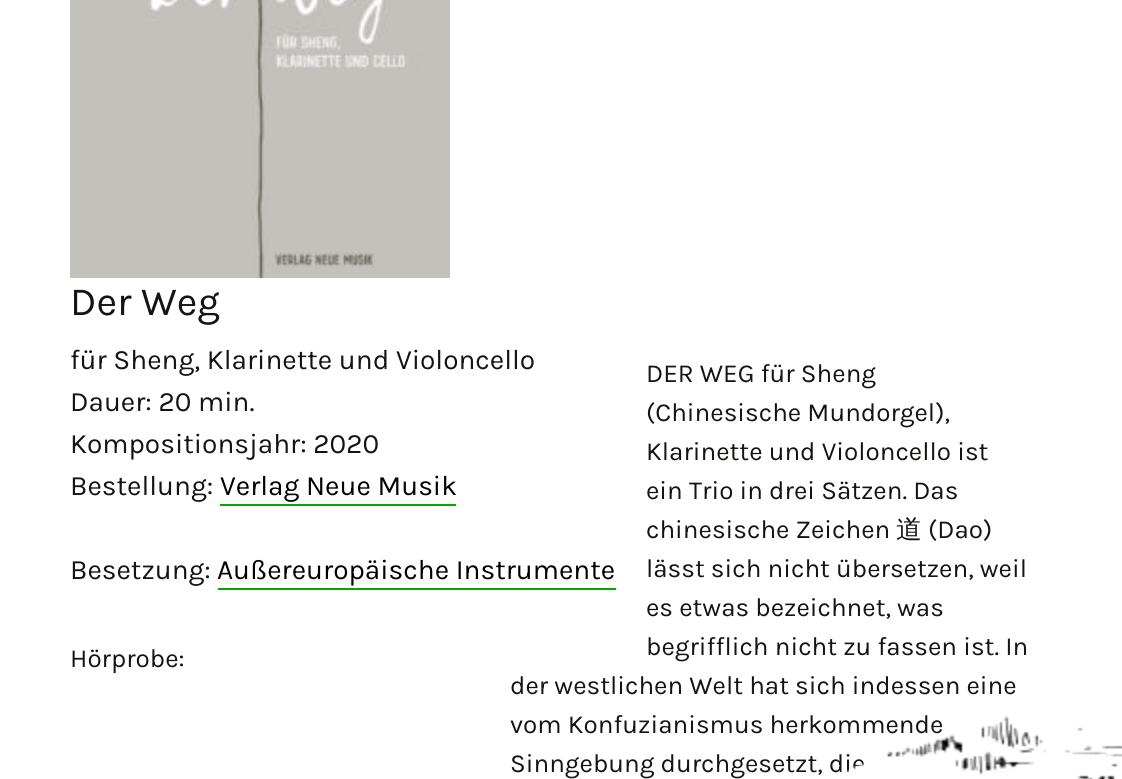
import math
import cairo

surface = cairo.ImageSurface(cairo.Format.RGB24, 1122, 779)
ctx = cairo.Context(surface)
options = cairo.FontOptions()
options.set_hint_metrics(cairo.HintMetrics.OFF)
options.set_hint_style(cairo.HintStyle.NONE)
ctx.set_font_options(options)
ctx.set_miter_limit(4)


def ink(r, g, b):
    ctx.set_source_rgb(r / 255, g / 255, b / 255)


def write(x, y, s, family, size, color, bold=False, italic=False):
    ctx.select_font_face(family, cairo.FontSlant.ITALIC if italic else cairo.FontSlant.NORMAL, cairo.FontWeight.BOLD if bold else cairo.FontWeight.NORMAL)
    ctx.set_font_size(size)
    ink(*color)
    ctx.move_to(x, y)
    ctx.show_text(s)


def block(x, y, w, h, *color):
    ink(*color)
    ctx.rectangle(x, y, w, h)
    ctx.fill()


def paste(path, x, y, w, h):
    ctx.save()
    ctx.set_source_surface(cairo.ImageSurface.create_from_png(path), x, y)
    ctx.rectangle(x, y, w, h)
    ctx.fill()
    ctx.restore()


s1 = dict(family="Karla", size=40, color=(20, 20, 18))
s2 = dict(family="Karla", size=28, color=(20, 20, 18))
s3 = dict(family="Karla", size=28, color=(0, 0, 0))
s4 = dict(family="Karla", size=26, color=(20, 20, 18))
s5 = dict(family="WenQuanYi Zen Hei Medium", size=26, color=(20, 20, 18))

ink(255, 255, 255)
ctx.paint()
paste("pic1.png", 70, 0, 380, 278)
write(70, 315, "Der Weg", **s1)
write(70, 369, "für Sheng, Klarinette und Violoncello", **s2)
write(70, 411, "Dauer: 20 min.", **s2)
write(70, 453, "Kompositionsjahr: 2020", **s2)
write(70, 495, "Bestellung:", **s2)
write(220, 495, "Verlag Neue Musik", **s3)
block(220, 504, 236, 2, 0, 170, 0)
write(70, 579, "Besetzung:", **s2)
write(217, 579, "Außereuropäische Instrumente", **s3)
block(218, 588, 398, 2, 0, 170, 0)
write(70, 667, "Hörprobe:", **s4)
write(646, 382, "DER WEG für Sheng", **s4)
write(646, 421, "(Chinesische Mundorgel),", **s4)
write(646, 460, "Klarinette und Violoncello ist", **s4)
write(646, 499, "ein Trio in drei Sätzen. Das", **s4)
write(646, 538, "chinesische Zeichen", **s4)
write(896, 538, "道", **s5)
write(928, 538, "(Dao)", **s4)
write(646, 577, "lässt sich nicht übersetzen, weil", **s4)
write(646, 616, "es etwas bezeichnet, was", **s4)
write(646, 655, "begrifflich nicht zu fassen ist. In", **s4)
write(510, 694, "der westlichen Welt hat sich indessen eine", **s4)
write(510, 733, "vom Konfuzianismus herkommende", **s4)
write(510, 772, "Sinngebung durchgesetzt, die", **s4)
paste("pic2.png", 846, 716, 276, 63)
surface.write_to_png("screenshot.png")
